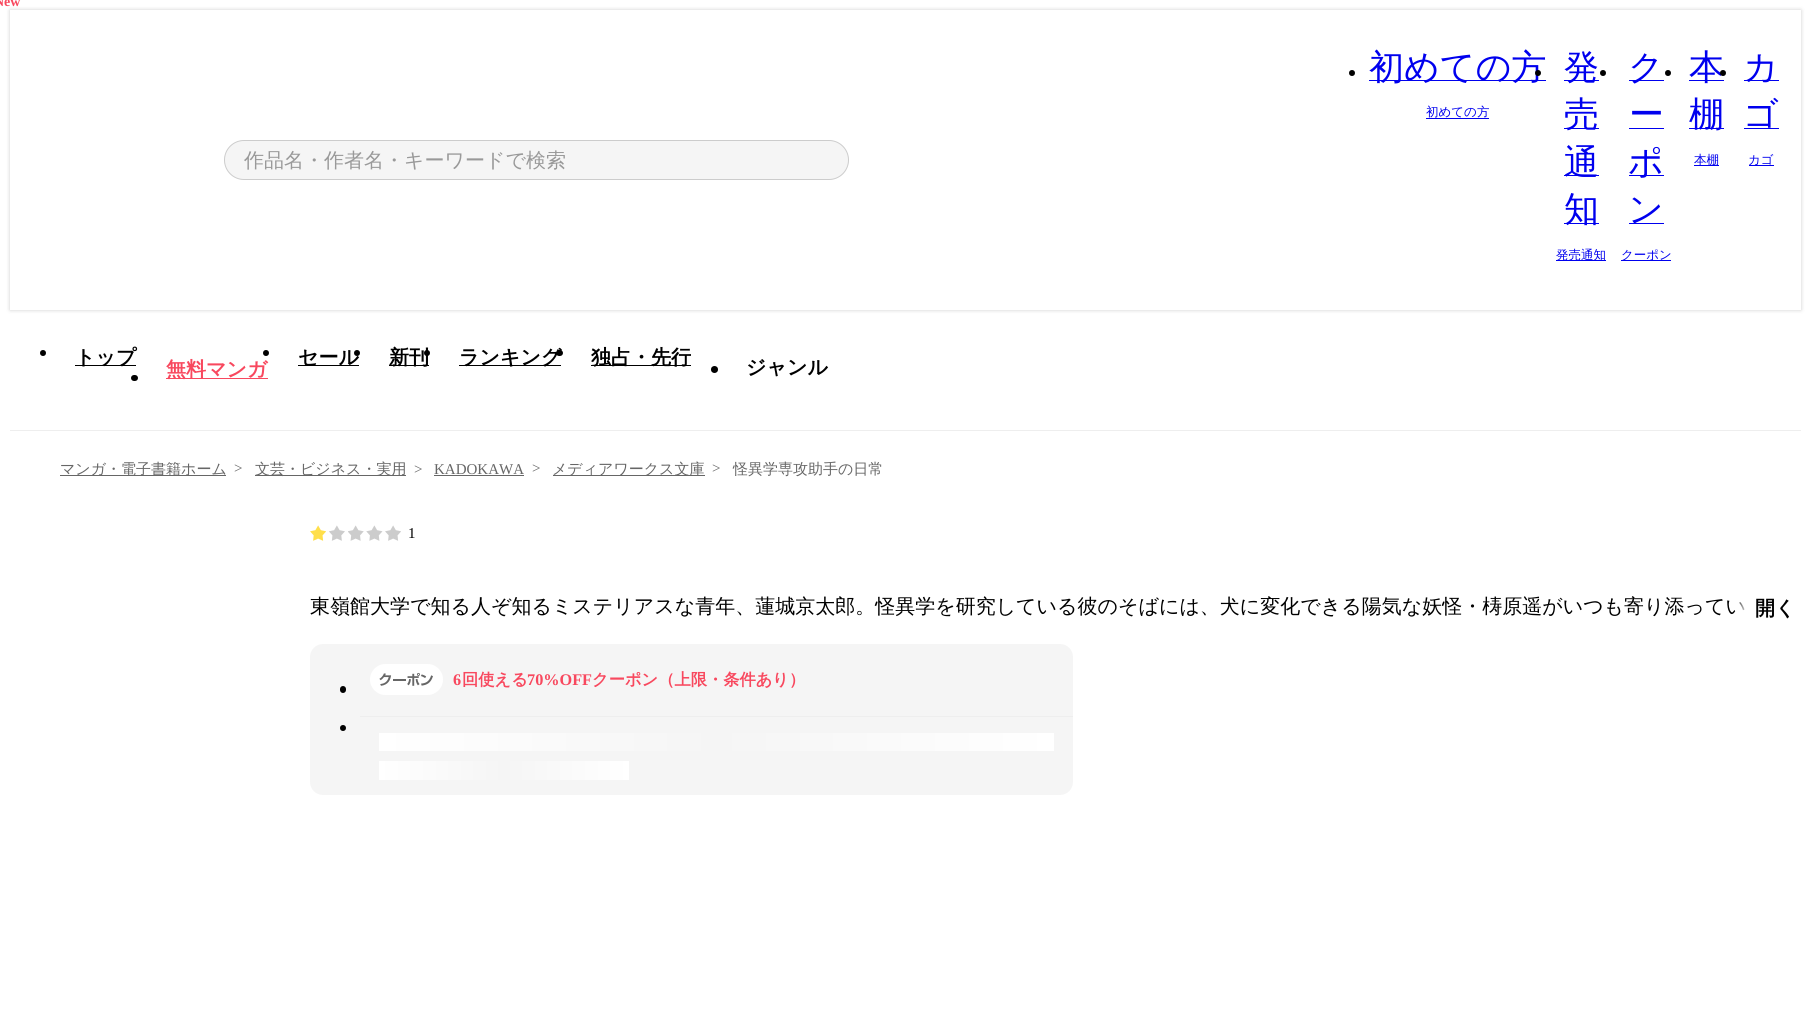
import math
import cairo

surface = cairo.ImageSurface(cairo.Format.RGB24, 1811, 1032)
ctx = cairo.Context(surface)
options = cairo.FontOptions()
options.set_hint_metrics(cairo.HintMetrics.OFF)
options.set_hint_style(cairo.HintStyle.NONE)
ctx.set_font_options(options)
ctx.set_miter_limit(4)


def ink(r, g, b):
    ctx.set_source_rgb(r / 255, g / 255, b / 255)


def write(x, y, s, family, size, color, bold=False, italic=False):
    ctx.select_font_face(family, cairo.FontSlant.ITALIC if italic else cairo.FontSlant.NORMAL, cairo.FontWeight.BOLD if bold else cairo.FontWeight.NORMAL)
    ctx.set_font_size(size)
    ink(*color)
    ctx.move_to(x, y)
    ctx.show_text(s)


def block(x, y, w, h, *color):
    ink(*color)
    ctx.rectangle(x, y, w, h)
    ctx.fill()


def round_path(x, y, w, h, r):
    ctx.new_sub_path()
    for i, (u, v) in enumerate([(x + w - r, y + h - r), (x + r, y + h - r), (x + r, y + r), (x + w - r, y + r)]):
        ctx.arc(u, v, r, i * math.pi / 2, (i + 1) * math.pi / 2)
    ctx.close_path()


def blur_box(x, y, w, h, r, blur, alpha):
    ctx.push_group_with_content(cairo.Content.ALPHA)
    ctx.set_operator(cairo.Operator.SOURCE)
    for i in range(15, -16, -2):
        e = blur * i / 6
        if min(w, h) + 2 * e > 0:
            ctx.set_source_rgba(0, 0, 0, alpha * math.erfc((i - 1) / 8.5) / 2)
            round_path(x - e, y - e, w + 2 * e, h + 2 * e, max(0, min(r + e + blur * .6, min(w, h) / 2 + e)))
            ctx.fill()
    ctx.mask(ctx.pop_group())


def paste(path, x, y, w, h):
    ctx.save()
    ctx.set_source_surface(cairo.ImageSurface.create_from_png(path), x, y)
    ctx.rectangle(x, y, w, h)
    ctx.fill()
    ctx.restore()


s1 = dict(family="Liberation Serif", size=14, color=(248, 72, 94), bold=True)
s2 = dict(family="WenQuanYi Zen Hei", size=20, color=(248, 72, 94), bold=True)
s3 = dict(family="WenQuanYi Zen Hei", size=20, color=(0, 0, 0), bold=True)
s4 = dict(family="WenQuanYi Zen Hei Medium", size=20, color=(153, 153, 153))
s5 = dict(family="WenQuanYi Zen Hei Medium", size=35, color=(0, 0, 238))
s6 = dict(family="WenQuanYi Zen Hei Medium", size=12.5, color=(0, 0, 238))
s7 = dict(family="WenQuanYi Zen Hei Medium", size=15, color=(102, 102, 102))
s8 = dict(family="Liberation Serif", size=15, color=(102, 102, 102))
s9 = dict(family="Liberation Serif", size=15, color=(0, 0, 0))
s10 = dict(family="WenQuanYi Zen Hei Medium", size=20, color=(0, 0, 0))
s11 = dict(family="Liberation Serif", size=16.25, color=(248, 72, 94), bold=True)
s12 = dict(family="WenQuanYi Zen Hei", size=16.25, color=(248, 72, 94), bold=True)

ink(255, 255, 255)
ctx.paint()
block(10, 430, 1791, 1, 238, 238, 238)
ctx.save()
ctx.set_fill_rule(cairo.FillRule.EVEN_ODD)
ctx.new_path()
ctx.move_to(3, 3)
ctx.line_to(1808, 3)
ctx.line_to(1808, 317)
ctx.line_to(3, 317)
ctx.close_path()
ctx.move_to(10, 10)
ctx.line_to(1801, 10)
ctx.line_to(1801, 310)
ctx.line_to(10, 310)
ctx.close_path()
ctx.clip()
ink(0, 0, 0)
blur_box(10, 10, 1791, 300, 0, 2, 0.2)
ctx.restore()
write(-6, 6, "New", **s1)
block(166, 378, 102, 1, 248, 72, 94)
write(166, 376, "無料マンガ", **s2)
ink(0, 0, 0)
round_path(131, 375, 7, 6, 3)
ctx.fill()
ctx.arc(43, 353, 3, 0, 2 * math.pi)
ctx.fill()
block(75, 365, 61, 1, 0, 0, 0)
write(75, 364, "トップ", **s3)
ctx.new_path()
ctx.arc(266, 353, 3, 0, 2 * math.pi)
ctx.fill()
block(298, 365, 61, 1, 0, 0, 0)
write(298, 364, "セール", **s3)
ctx.new_path()
ctx.arc(357, 353, 3, 0, 2 * math.pi)
ctx.fill()
block(389, 365, 40, 1, 0, 0, 0)
write(389, 364, "新刊", **s3)
ctx.new_path()
ctx.arc(427, 353, 3, 0, 2 * math.pi)
ctx.fill()
block(459, 365, 102, 1, 0, 0, 0)
write(459, 364, "ランキング", **s3)
round_path(556, 350, 7, 6, 3)
ctx.fill()
block(591, 365, 100, 1, 0, 0, 0)
write(591, 364, "独占・先行", **s3)
ctx.new_path()
ctx.arc(714.5, 369.5, 3.5, 0, 2 * math.pi)
ctx.fill()
write(746, 374, "ジャンル", **s3)
ink(245, 245, 245)
round_path(224.5, 140.5, 624, 39, 19.5)
ctx.fill_preserve()
ink(204, 204, 204)
ctx.set_line_width(1)
ctx.stroke()
write(244, 167, "作品名・作者名・キーワードで検索", **s4)
ink(0, 0, 0)
ctx.new_path()
ctx.arc(1352, 73, 3, 0, 2 * math.pi)
ctx.fill()
block(1369, 80, 177, 1, 0, 0, 238)
write(1369, 79, "初めての方", **s5)
write(1426, 116, "初めての方", **s6)
block(1426, 118, 63, 1, 0, 0, 238)
ink(0, 0, 0)
ctx.new_path()
ctx.arc(1538, 73, 3, 0, 2 * math.pi)
ctx.fill()
block(1564, 80, 35, 1, 0, 0, 238)
write(1564, 79, "発", **s5)
block(1564, 128, 35, 1, 0, 0, 238)
write(1564, 126, "売", **s5)
block(1564, 175, 35, 1, 0, 0, 238)
write(1564, 174, "通", **s5)
block(1564, 223, 35, 1, 0, 0, 238)
write(1564, 221, "知", **s5)
block(1556, 260, 50, 1, 0, 0, 238)
write(1556, 259, "発売通知", **s6)
ink(0, 0, 0)
ctx.new_path()
ctx.arc(1603, 73, 3, 0, 2 * math.pi)
ctx.fill()
block(1629, 80, 35, 1, 0, 0, 238)
write(1628, 79, "ク", **s5)
write(1629, 126, "ー", **s5)
block(1629, 128, 35, 1, 0, 0, 238)
block(1629, 175, 35, 1, 0, 0, 238)
write(1628, 174, "ポ", **s5)
block(1629, 223, 35, 1, 0, 0, 238)
write(1628, 221, "ン", **s5)
block(1621, 260, 50, 1, 0, 0, 238)
write(1621, 259, "クーポン", **s6)
ink(0, 0, 0)
ctx.new_path()
ctx.arc(1668, 73, 3, 0, 2 * math.pi)
ctx.fill()
block(1689, 80, 35, 1, 0, 0, 238)
write(1689, 79, "本", **s5)
block(1689, 128, 35, 1, 0, 0, 238)
write(1689, 126, "棚", **s5)
block(1694, 165, 25, 1, 0, 0, 238)
write(1694, 164, "本棚", **s6)
ink(0, 0, 0)
ctx.new_path()
ctx.arc(1723, 73, 3, 0, 2 * math.pi)
ctx.fill()
block(1744, 80, 35, 1, 0, 0, 238)
write(1743, 79, "カ", **s5)
write(1743, 126, "ゴ", **s5)
block(1744, 128, 35, 1, 0, 0, 238)
block(1749, 165, 25, 1, 0, 0, 238)
write(1748, 164, "カゴ", **s6)
block(60, 475, 166, 1, 102, 102, 102)
write(60, 474, "マンガ・電子書籍ホーム", **s7)
write(234, 473, ">", **s8)
block(255, 475, 151, 1, 102, 102, 102)
write(255, 474, "文芸・ビジネス・実用", **s7)
write(414, 474, ">", **s8)
write(434, 474, "KADOKAWA", **s8)
block(434, 475, 90, 1, 102, 102, 102)
write(532, 473, ">", **s8)
block(553, 475, 152, 1, 102, 102, 102)
write(552, 474, "メディアワークス文庫", **s7)
write(712, 473, ">", **s8)
write(733, 474, "怪異学専攻助手の日常", **s7)
paste("pic1.png", 310, 525, 16, 16)
paste("pic2.png", 329, 525, 16, 16)
paste("pic3.png", 348, 525, 16, 16)
paste("pic4.png", 366, 525, 17, 16)
paste("pic5.png", 385, 525, 16, 16)
write(408, 538, "1", **s9)
write(310, 613, "東嶺館大学で知る人ぞ知るミステリアスな青年、蓮城京太郎。怪異学を研究している彼のそばには、犬に変化できる陽気な妖怪・梼原遥がいつも寄り添ってい", **s10)
gradient = cairo.LinearGradient(1801, 609, 1734, 609)
gradient.add_color_stop_rgba(0.79, 1, 1, 1, 1)
gradient.add_color_stop_rgba(1, 1, 1, 1, 0)
ctx.set_source(gradient)
ctx.rectangle(1739, 602, 6, 9)
ctx.fill()
write(1755, 615, "開く", **s3)
ink(245, 245, 245)
round_path(310, 644, 763, 151, 13)
ctx.fill()
paste("pic6.png", 370, 664, 73, 31)
write(453, 685, "6", **s11)
write(462, 685, "回使える", **s12)
write(527, 685, "70%OFF", **s11)
write(592, 685, "クーポン（上限・条件あり）", **s12)
ink(0, 0, 0)
round_path(340, 686, 6, 7, 3)
ctx.fill()
block(360, 716, 713, 1, 238, 238, 238)
ink(0, 0, 0)
ctx.arc(343, 728, 3, 0, 2 * math.pi)
ctx.fill()
gradient = cairo.LinearGradient(379, 742, 1054, 742)
gradient.add_color_stop_rgba(0, 1, 1, 1, 1)
gradient.add_color_stop_rgba(0.5, 0.961, 0.961, 0.961, 1)
gradient.add_color_stop_rgba(1, 1, 1, 1, 1)
ctx.set_source(gradient)
ctx.rectangle(379, 733, 675, 18)
ctx.fill()
gradient = cairo.LinearGradient(379, 771, 629, 771)
gradient.add_color_stop_rgba(0, 1, 1, 1, 1)
gradient.add_color_stop_rgba(0.5, 0.961, 0.961, 0.961, 1)
gradient.add_color_stop_rgba(1, 1, 1, 1, 1)
ctx.set_source(gradient)
ctx.rectangle(379, 761, 250, 19)
ctx.fill()
surface.write_to_png("screenshot.png")
